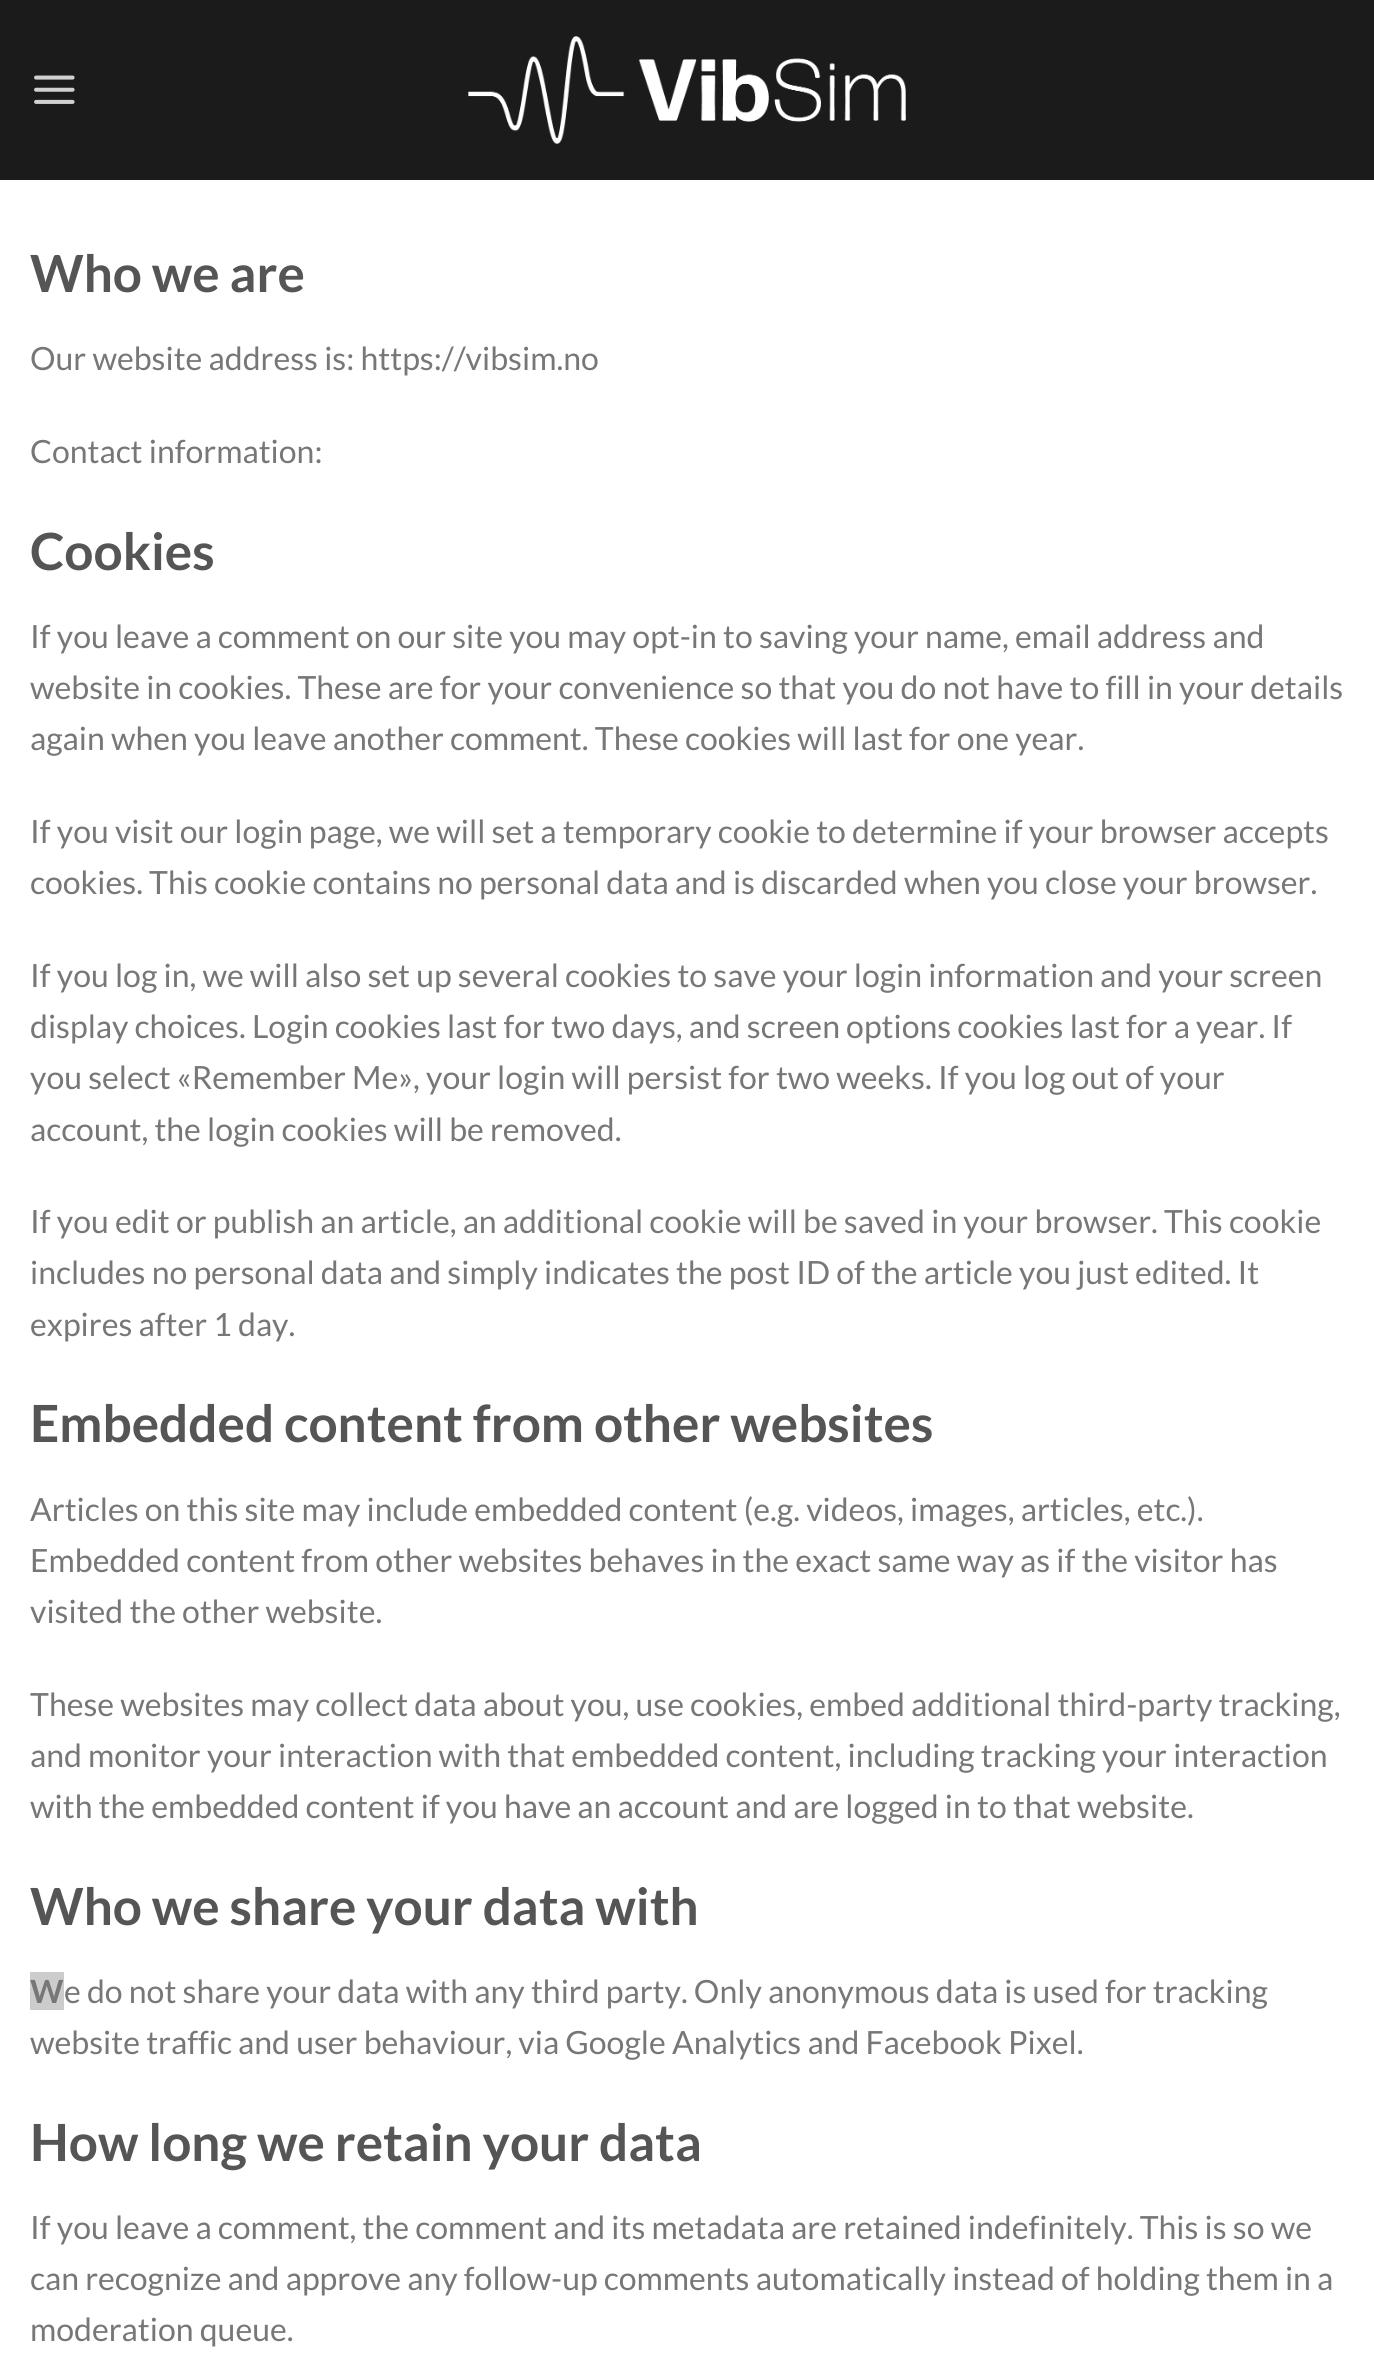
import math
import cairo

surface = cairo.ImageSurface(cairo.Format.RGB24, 1374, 2362)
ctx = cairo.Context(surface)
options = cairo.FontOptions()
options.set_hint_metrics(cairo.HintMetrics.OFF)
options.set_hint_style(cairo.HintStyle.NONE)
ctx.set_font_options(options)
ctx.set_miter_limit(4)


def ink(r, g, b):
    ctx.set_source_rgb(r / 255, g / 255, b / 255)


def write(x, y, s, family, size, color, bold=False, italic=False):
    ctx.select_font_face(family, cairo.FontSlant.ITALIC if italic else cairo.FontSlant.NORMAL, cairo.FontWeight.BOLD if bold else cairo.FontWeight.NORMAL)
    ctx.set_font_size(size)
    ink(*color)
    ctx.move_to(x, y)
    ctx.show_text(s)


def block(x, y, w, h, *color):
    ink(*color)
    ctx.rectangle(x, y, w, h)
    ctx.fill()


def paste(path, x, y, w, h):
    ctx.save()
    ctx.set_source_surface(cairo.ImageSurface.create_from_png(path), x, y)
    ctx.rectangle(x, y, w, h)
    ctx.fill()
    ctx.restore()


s1 = dict(family="Lato", size=51.25, color=(85, 85, 85), bold=True)
s2 = dict(family="Lato", size=32, color=(119, 119, 119))
s3 = dict(family="Lato", size=32, color=(119, 119, 119), bold=True)

ink(255, 255, 255)
ctx.paint()
block(0, 0, 1374, 180, 27, 27, 27)
paste("pic1.png", 34, 75, 41, 29)
paste("pic2.png", 468, 36, 438, 108)
write(30, 292, "Who we are", **s1)
write(30, 370, "Our website address is: https://vibsim.no", **s2)
write(30, 463, "Contact information:", **s2)
write(30, 570, "Cookies", **s1)
write(30, 648, "If you leave a comment on our site you may opt-in to saving your name, email address and", **s2)
write(30, 699, "website in cookies. These are for your convenience so that you do not have to fill in your details", **s2)
write(30, 750, "again when you leave another comment. These cookies will last for one year.", **s2)
write(30, 843, "If you visit our login page, we will set a temporary cookie to determine if your browser accepts", **s2)
write(30, 894, "cookies. This cookie contains no personal data and is discarded when you close your browser.", **s2)
write(30, 987, "If you log in, we will also set up several cookies to save your login information and your screen", **s2)
write(30, 1038, "display choices. Login cookies last for two days, and screen options cookies last for a year. If", **s2)
write(30, 1089, "you select «Remember Me», your login will persist for two weeks. If you log out of your", **s2)
write(30, 1141, "account, the login cookies will be removed.", **s2)
write(30, 1233, "If you edit or publish an article, an additional cookie will be saved in your browser. This cookie", **s2)
write(30, 1284, "includes no personal data and simply indicates the post ID of the article you just edited. It", **s2)
write(30, 1336, "expires after 1 day.", **s2)
write(30, 1442, "Embedded content from other websites", **s1)
write(30, 1521, "Articles on this site may include embedded content (e.g. videos, images, articles, etc.).", **s2)
write(30, 1572, "Embedded content from other websites behaves in the exact same way as if the visitor has", **s2)
write(30, 1623, "visited the other website.", **s2)
write(30, 1716, "These websites may collect data about you, use cookies, embed additional third-party tracking,", **s2)
write(30, 1767, "and monitor your interaction with that embedded content, including tracking your interaction", **s2)
write(30, 1818, "with the embedded content if you have an account and are logged in to that website.", **s2)
write(30, 1925, "Who we share your data with", **s1)
block(30, 1972, 34, 38, 204, 204, 204)
write(30, 2003, "W", **s3)
write(64, 2003, "e do not share your data with any third party. Only anonymous data is used for tracking", **s2)
write(30, 2054, "website traffic and user behaviour, via Google Analytics and Facebook Pixel.", **s2)
write(30, 2161, "How long we retain your data", **s1)
write(30, 2239, "If you leave a comment, the comment and its metadata are retained indefinitely. This is so we", **s2)
write(30, 2290, "can recognize and approve any follow-up comments automatically instead of holding them in a", **s2)
write(30, 2341, "moderation queue.", **s2)
surface.write_to_png("screenshot.png")
